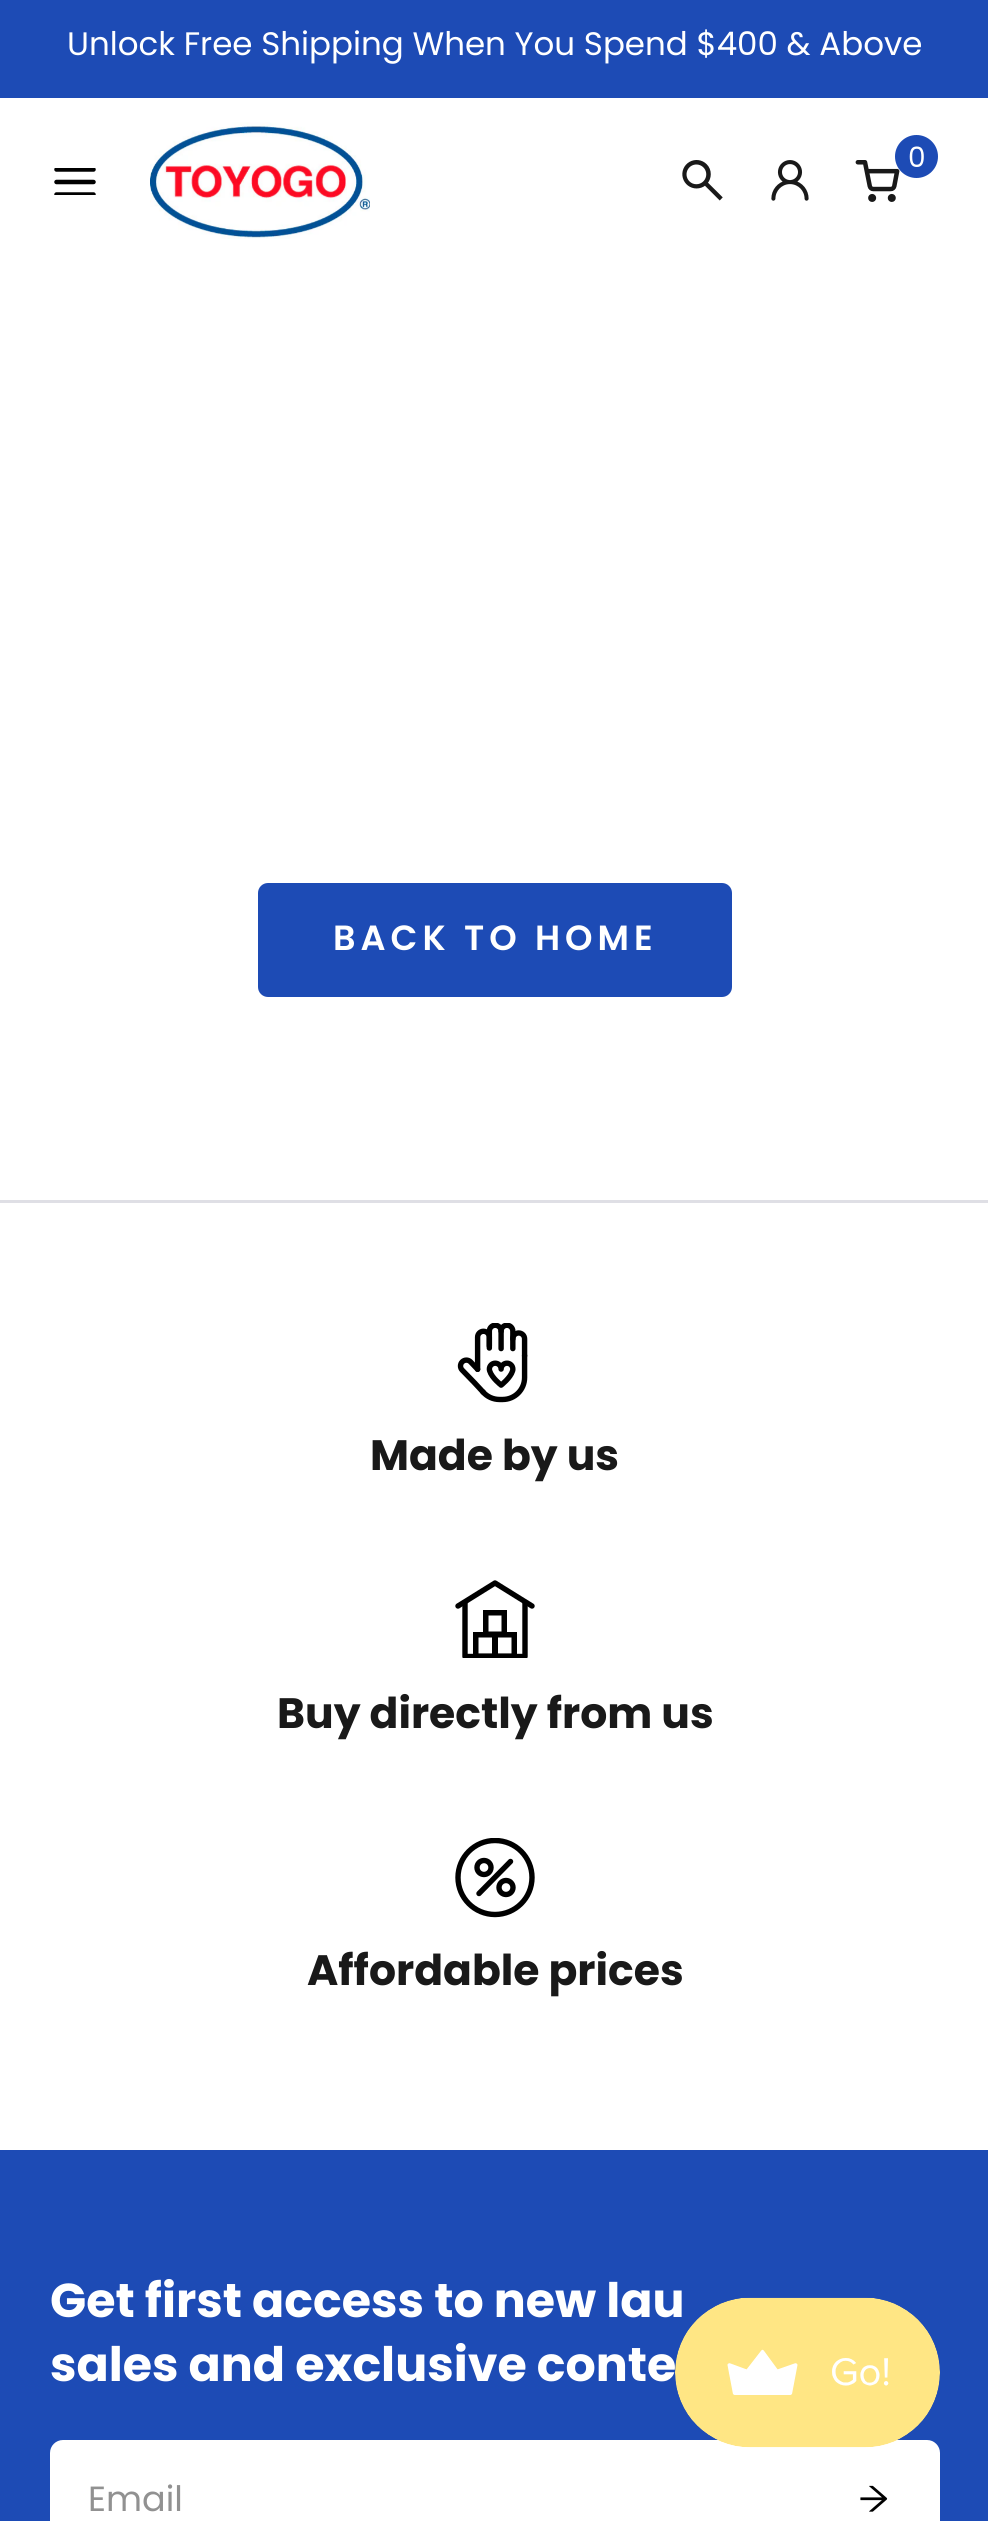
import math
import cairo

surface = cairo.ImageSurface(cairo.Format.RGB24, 988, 2521)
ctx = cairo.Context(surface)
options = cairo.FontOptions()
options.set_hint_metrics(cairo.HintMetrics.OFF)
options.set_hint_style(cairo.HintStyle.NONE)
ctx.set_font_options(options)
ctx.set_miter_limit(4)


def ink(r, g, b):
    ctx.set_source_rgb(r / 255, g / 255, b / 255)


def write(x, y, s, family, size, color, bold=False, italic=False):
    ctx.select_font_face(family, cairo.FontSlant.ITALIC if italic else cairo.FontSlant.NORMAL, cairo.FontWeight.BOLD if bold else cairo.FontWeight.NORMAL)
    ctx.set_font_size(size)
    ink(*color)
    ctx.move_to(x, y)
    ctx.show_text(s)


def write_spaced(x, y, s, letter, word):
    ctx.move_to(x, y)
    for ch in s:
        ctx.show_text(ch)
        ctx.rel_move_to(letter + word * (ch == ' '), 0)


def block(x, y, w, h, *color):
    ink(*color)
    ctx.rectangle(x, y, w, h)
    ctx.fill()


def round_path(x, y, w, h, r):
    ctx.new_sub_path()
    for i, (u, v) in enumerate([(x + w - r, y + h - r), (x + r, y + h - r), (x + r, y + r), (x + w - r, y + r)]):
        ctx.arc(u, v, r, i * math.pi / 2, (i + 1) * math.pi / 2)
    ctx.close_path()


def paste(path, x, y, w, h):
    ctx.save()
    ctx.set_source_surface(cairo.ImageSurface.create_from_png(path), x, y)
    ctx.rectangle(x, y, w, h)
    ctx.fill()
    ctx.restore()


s1 = dict(family="Poppins", size=32.5, color=(255, 255, 255))
s2 = dict(family="Poppins", size=28, color=(255, 255, 255))
s3 = dict(family="Poppins", size=42.5, color=(25, 25, 25), bold=True)
s4 = dict(family="Poppins", size=47.5, color=(255, 255, 255), bold=True)
s5 = dict(family="Poppins", size=35, color=(145, 145, 145))

ink(255, 255, 255)
ctx.paint()
block(0, 0, 988, 98, 29, 75, 181)
write(67, 55, "Unlock Free Shipping When You Spend $400 & Above", **s1)
paste("pic1.png", 150, 122, 220, 117)
paste("pic2.png", 855, 160, 45, 42)
ink(29, 75, 181)
ctx.arc(916.5, 156.5, 21.5, 0, 2 * math.pi)
ctx.fill()
write(908, 167, "0", **s2)
paste("pic3.png", 682, 160, 41, 41)
paste("pic4.png", 771, 160, 38, 41)
ctx.new_path()
ctx.move_to(56.5, 182)
ctx.line_to(93.5, 182)
ink(0, 0, 0)
ctx.set_line_width(4.5)
ctx.set_line_cap(cairo.LineCap.ROUND)
ctx.set_line_join(cairo.LineJoin.ROUND)
ctx.stroke()
ctx.save()
ctx.rectangle(50, 168, 50, 27)
ctx.clip()
ctx.new_path()
ctx.move_to(56.5, 169.5)
ctx.line_to(93.5, 169.5)
ctx.move_to(56.5, 194.5)
ctx.line_to(93.5, 194.5)
ctx.stroke()
ctx.restore()
ink(29, 75, 181)
round_path(256.5, 881.5, 477, 117, 11.5)
ctx.fill_preserve()
ink(255, 255, 255)
ctx.set_line_width(3)
ctx.set_line_cap(cairo.LineCap.BUTT)
ctx.set_line_join(cairo.LineJoin.MITER)
ctx.stroke()
ctx.select_font_face("Poppins SemiBold")
ctx.set_font_size(35)
write_spaced(333, 950, "BACK TO HOME", 5, 0)
block(0, 1200, 988, 3, 223, 223, 229)
paste("pic5.png", 457, 1323, 71, 80)
write(370, 1470, "Made by us", **s3)
ctx.new_path()
ctx.move_to(458, 1606)
ctx.line_to(495, 1583)
ctx.line_to(532, 1606)
ink(0, 0, 0)
ctx.set_line_width(5.4)
ctx.set_line_cap(cairo.LineCap.ROUND)
ctx.set_line_join(cairo.LineJoin.ROUND)
ctx.stroke()
ctx.save()
ctx.rectangle(455, 1580, 80, 78)
ctx.clip()
ctx.new_path()
ctx.move_to(525, 1603)
ctx.line_to(525, 1656.5)
ctx.line_to(465, 1656.5)
ctx.line_to(465, 1603)
ctx.stroke()
ctx.rectangle(475.75, 1634.75, 19.5, 21.5)
ctx.set_line_width(5.5)
ctx.set_line_cap(cairo.LineCap.BUTT)
ctx.set_line_join(cairo.LineJoin.MITER)
ctx.stroke()
ctx.rectangle(494.75, 1634.75, 19.5, 21.5)
ctx.stroke()
ctx.restore()
ctx.rectangle(485.75, 1612.75, 18.5, 21.5)
ctx.set_line_width(5.5)
ctx.set_line_cap(cairo.LineCap.BUTT)
ctx.set_line_join(cairo.LineJoin.MITER)
ctx.stroke()
write(277, 1728, "Buy directly from us", **s3)
ctx.save()
ctx.rectangle(455, 1838, 80, 80)
ctx.clip()
ctx.arc(495, 1877.5, 37, 0, 2 * math.pi)
ink(0, 0, 0)
ctx.set_line_width(5.4)
ctx.stroke()
ctx.restore()
ctx.arc(484, 1867.5, 7, 0, 2 * math.pi)
ink(0, 0, 0)
ctx.set_line_width(5.4)
ctx.stroke()
ctx.arc(506, 1887.5, 7, 0, 2 * math.pi)
ctx.stroke()
ctx.new_path()
ctx.move_to(510.5, 1861.5)
ctx.line_to(479, 1893.5)
ctx.set_line_cap(cairo.LineCap.ROUND)
ctx.set_line_join(cairo.LineJoin.ROUND)
ctx.stroke()
write(307, 1985, "Affordable prices", **s3)
block(0, 2150, 988, 371, 29, 75, 181)
write(50, 2317, "Get first access to new lau", **s4)
write(50, 2381, "sales and exclusive conte", **s4)
round_path(50, 2440, 890, 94, 13)
ctx.fill()
write(88, 2511, "Email", **s5)
paste("pic6.png", 860, 2485, 28, 27)
paste("pic7.png", 675, 2297, 265, 151)
surface.write_to_png("screenshot.png")
